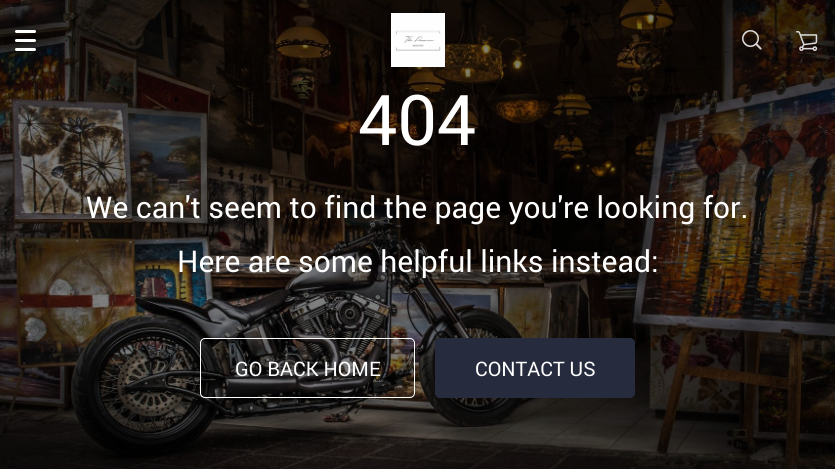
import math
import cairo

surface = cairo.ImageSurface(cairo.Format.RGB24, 835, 469)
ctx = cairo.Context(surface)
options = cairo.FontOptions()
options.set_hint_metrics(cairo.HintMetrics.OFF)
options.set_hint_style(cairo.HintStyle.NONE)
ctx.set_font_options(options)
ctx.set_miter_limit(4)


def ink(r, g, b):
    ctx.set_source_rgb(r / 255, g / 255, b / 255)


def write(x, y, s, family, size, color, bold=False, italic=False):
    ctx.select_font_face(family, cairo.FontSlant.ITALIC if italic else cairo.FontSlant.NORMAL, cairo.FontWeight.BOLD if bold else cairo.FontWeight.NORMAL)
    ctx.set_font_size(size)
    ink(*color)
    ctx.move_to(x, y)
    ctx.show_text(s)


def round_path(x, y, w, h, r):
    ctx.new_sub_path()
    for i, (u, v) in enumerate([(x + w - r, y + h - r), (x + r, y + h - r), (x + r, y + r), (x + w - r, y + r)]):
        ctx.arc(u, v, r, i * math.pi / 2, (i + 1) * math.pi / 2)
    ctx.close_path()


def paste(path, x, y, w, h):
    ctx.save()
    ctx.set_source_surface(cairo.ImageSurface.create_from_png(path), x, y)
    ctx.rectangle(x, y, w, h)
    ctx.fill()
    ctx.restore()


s1 = dict(family="Roboto", size=70, color=(255, 255, 255))
s2 = dict(family="Roboto", size=30, color=(255, 255, 255))
s3 = dict(family="Roboto", size=20, color=(255, 255, 255))

ink(255, 255, 255)
ctx.paint()
paste("pic4.png", 0, 0, 835, 469)
ink(255, 255, 255)
round_path(15, 30, 21, 3, 1.5)
ctx.fill()
round_path(15, 39, 21, 3, 1.5)
ctx.fill()
round_path(15, 48, 21, 3, 1.5)
ctx.fill()
paste("pic1.png", 391, 13, 54, 54)
paste("pic2.png", 742, 30, 20, 20)
paste("pic3.png", 796, 31, 22, 20)
write(358, 145, "404", **s1)
write(86, 218, "We can't seem to find the page you're looking for.", **s2)
write(177, 272, "Here are some helpful links instead:", **s2)
round_path(200.5, 338.5, 214, 59, 4.5)
ctx.set_line_width(1)
ctx.stroke()
write(235, 376, "GO BACK HOME", **s3)
ink(38, 43, 62)
round_path(435.5, 338.5, 199, 59, 4.5)
ctx.fill_preserve()
ctx.stroke()
write(475, 376, "CONTACT US", **s3)
surface.write_to_png("screenshot.png")
